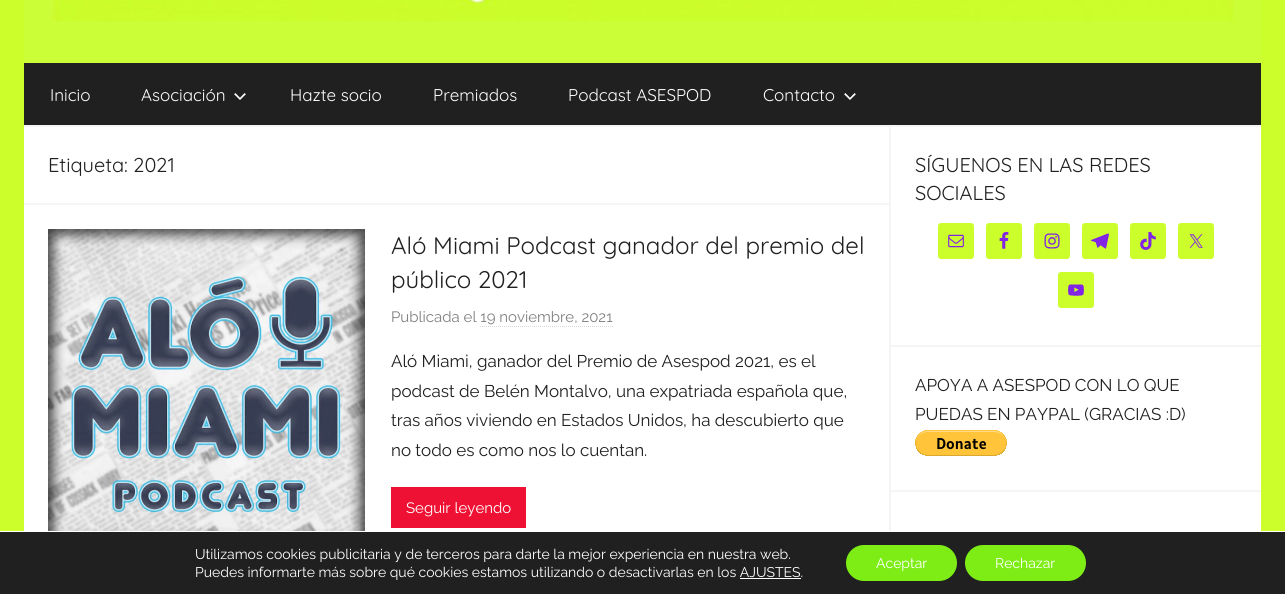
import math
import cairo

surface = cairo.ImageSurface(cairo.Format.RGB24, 1285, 594)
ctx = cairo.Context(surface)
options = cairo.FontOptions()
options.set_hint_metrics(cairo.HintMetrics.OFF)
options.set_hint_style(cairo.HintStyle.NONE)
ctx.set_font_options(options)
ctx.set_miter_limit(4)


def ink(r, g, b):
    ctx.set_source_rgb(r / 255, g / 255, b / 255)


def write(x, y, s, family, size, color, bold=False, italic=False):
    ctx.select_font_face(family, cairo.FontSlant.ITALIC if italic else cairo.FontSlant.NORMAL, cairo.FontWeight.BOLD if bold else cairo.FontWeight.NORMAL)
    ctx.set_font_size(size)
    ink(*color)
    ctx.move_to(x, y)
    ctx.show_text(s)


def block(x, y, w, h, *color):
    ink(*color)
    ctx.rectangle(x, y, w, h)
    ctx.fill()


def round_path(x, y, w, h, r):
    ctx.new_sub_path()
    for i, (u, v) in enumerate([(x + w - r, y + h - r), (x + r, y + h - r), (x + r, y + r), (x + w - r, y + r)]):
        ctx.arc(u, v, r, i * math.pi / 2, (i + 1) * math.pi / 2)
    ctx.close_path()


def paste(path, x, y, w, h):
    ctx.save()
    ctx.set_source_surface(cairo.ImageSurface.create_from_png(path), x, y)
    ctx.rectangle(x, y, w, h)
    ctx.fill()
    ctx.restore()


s1 = dict(family="Quicksand", size=17, color=(255, 255, 255))
s2 = dict(family="Quicksand", size=20, color=(32, 32, 32))
s3 = dict(family="Quicksand", size=24, color=(32, 32, 32))
s4 = dict(family="Raleway", size=15, color=(128, 128, 128))
s5 = dict(family="Raleway", size=17, color=(32, 32, 32))
s6 = dict(family="Raleway", size=15, color=(255, 255, 255))
s7 = dict(family="Raleway", size=14, color=(255, 255, 255))

ink(204, 254, 44)
ctx.paint()
block(24, 0, 1237, 63, 203, 254, 55)
paste("pic1.png", 52, 0, 1181, 21)
block(24, 63, 1237, 62, 32, 32, 32)
write(50, 101, "Inicio", **s1)
write(141, 101, "Asociación", **s1)
paste("pic2.png", 234, 93, 12, 7)
write(290, 101, "Hazte socio", **s1)
write(433, 101, "Premiados", **s1)
write(568, 101, "Podcast ASESPOD", **s1)
write(763, 101, "Contacto", **s1)
paste("pic2.png", 844, 93, 12, 7)
block(24, 125, 1237, 406, 245, 245, 245)
block(24, 127, 865, 404, 255, 255, 255)
block(24, 203, 865, 2, 245, 245, 245)
write(48, 172, "Etiqueta: 2021", **s2)
paste("pic3.png", 48, 229, 317, 302)
write(391, 254, "Aló Miami Podcast ganador del premio del", **s3)
write(391, 288, "público 2021", **s3)
write(391, 322, "Publicada el 19 noviembre, 2021", **s4)
ctx.new_path()
ctx.move_to(480, 326.5)
ctx.line_to(613, 326.5)
ink(217, 217, 217)
ctx.set_line_width(1)
ctx.set_dash([1, 1])
ctx.stroke()
write(391, 367, "Aló Miami, ganador del Premio de Asespod 2021, es el", **s5)
write(391, 397, "podcast de Belén Montalvo, una expatriada española que,", **s5)
write(391, 426, "tras años viviendo en Estados Unidos, ha descubierto que", **s5)
write(391, 456, "no todo es como nos lo cuentan.", **s5)
block(391, 487, 135, 41, 238, 17, 51)
write(406, 513, "Seguir leyendo", **s6)
block(891, 127, 370, 404, 255, 255, 255)
block(891, 345, 370, 2, 245, 245, 245)
write(915, 172, "SÍGUENOS EN LAS REDES", **s2)
write(915, 200, "SOCIALES", **s2)
ink(204, 254, 44)
round_path(938, 223, 36, 36, 3)
ctx.fill()
paste("pic4.png", 948, 234, 16, 14)
round_path(986, 223, 36, 36, 3)
ctx.fill()
paste("pic5.png", 999, 232, 10, 17)
round_path(1034, 223, 36, 36, 3)
ctx.fill()
paste("pic6.png", 1044, 233, 16, 16)
round_path(1082, 223, 36, 36, 3)
ctx.fill()
paste("pic7.png", 1091, 233, 18, 16)
round_path(1130, 223, 36, 36, 3)
ctx.fill()
paste("pic8.png", 1140, 232, 16, 18)
round_path(1178, 223, 36, 36, 3)
ctx.fill()
paste("pic9.png", 1189, 234, 14, 14)
round_path(1058, 272, 36, 36, 3)
ctx.fill()
paste("pic10.png", 1068, 284, 16, 12)
block(891, 490, 370, 2, 245, 245, 245)
write(915, 391, "APOYA A ASESPOD CON LO QUE", **s5)
write(915, 420, "PUEDAS EN PAYPAL (GRACIAS :D)", **s5)
paste("pic11.png", 915, 430, 92, 26)
block(0, 532, 1285, 62, 32, 32, 32)
block(0, 531, 1285, 1, 255, 255, 255)
write(195, 559, "Utilizamos cookies publicitaria y de terceros para darte la mejor experiencia en nuestra web.", **s7)
write(195, 577, "Puedes informarte más sobre qué cookies estamos utilizando o desactivarlas en los AJUSTES.", **s7)
block(740, 578, 61, 1, 255, 255, 255)
ink(126, 237, 22)
round_path(846, 545, 111, 36, 18)
ctx.fill()
write(876, 568, "Aceptar", **s7)
ink(126, 237, 22)
round_path(965, 545, 121, 36, 18)
ctx.fill()
write(995, 568, "Rechazar", **s7)
surface.write_to_png("screenshot.png")
